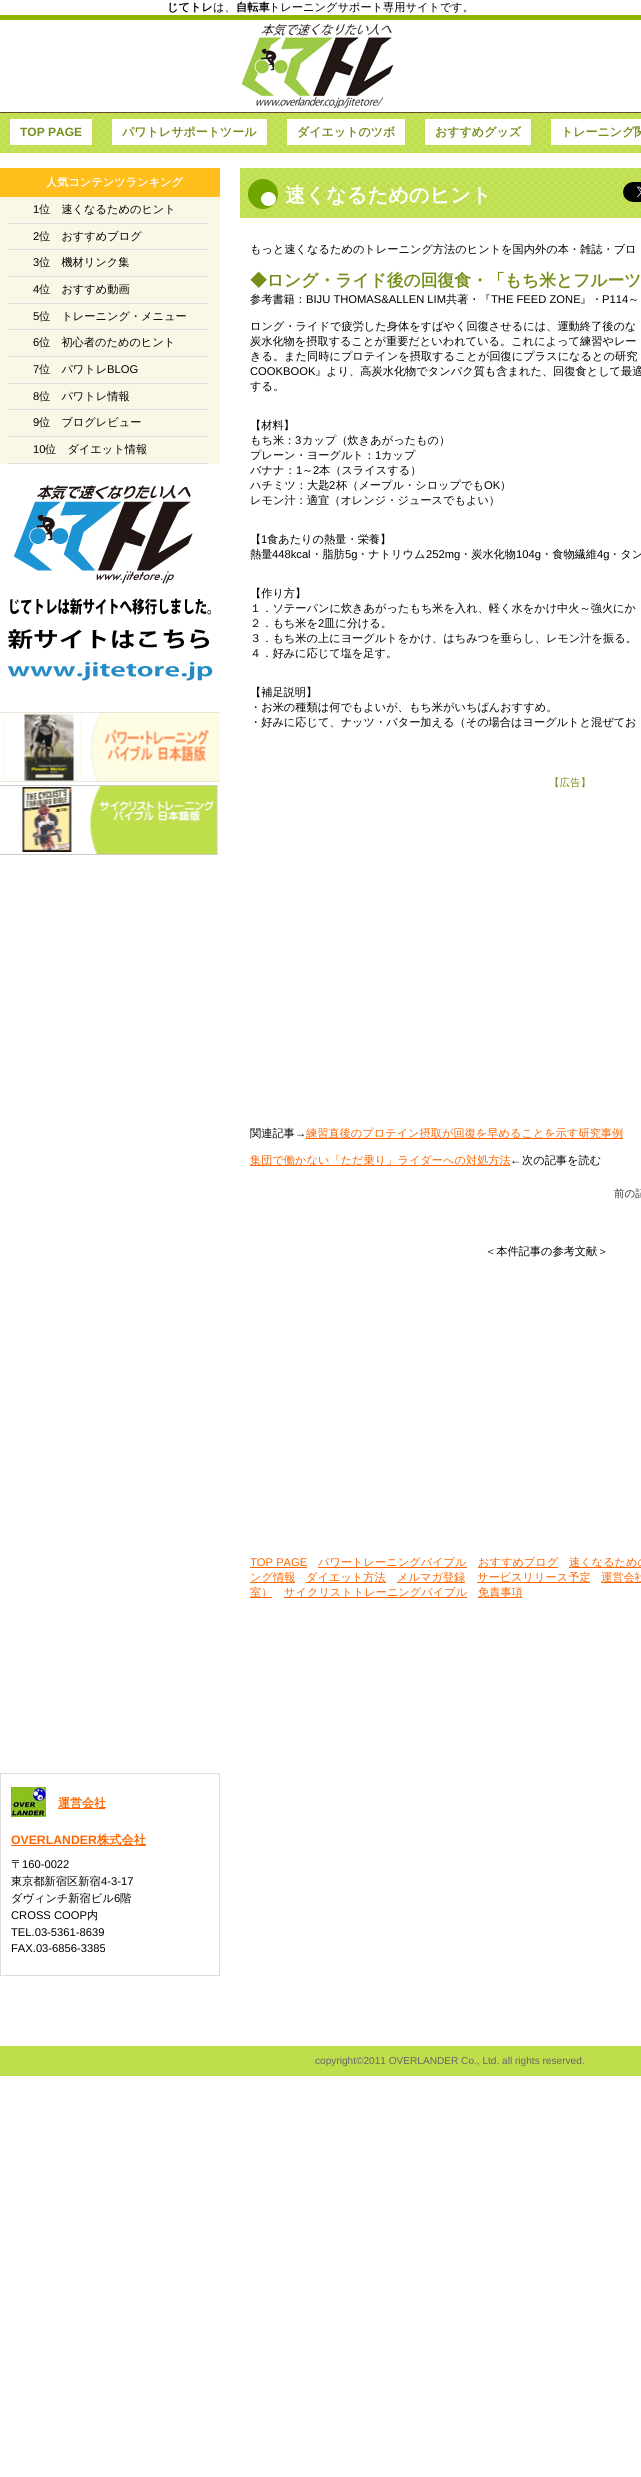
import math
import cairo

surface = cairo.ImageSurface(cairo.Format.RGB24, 641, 2477)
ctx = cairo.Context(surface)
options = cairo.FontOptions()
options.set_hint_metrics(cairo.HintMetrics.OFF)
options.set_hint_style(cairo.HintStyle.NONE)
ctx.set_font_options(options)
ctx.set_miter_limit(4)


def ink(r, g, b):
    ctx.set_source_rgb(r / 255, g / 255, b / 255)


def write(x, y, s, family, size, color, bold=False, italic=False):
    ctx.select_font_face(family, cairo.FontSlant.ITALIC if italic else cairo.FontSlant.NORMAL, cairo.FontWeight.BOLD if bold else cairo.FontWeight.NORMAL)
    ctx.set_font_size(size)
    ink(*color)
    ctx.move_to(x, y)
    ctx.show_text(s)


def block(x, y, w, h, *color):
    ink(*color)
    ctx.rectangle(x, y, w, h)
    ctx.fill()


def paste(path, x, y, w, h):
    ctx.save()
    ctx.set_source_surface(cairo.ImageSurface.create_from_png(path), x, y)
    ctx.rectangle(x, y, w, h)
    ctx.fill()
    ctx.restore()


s1 = dict(family="WenQuanYi Zen Hei", size=11.2, color=(0, 0, 0), bold=True)
s2 = dict(family="WenQuanYi Zen Hei Medium", size=11.2, color=(0, 0, 0))
s3 = dict(family="Liberation Sans", size=12, color=(117, 143, 27), bold=True)
s4 = dict(family="WenQuanYi Zen Hei", size=12, color=(117, 143, 27), bold=True)
s5 = dict(family="WenQuanYi Zen Hei", size=11.2, color=(255, 255, 255), bold=True)
s6 = dict(family="Liberation Sans", size=11.2, color=(0, 0, 0))
s7 = dict(family="WenQuanYi Zen Hei", size=12, color=(255, 102, 0), bold=True)
s8 = dict(family="Liberation Sans", size=12.25, color=(255, 102, 0), bold=True)
s9 = dict(family="WenQuanYi Zen Hei", size=12.25, color=(255, 102, 0), bold=True)
s10 = dict(family="WenQuanYi Zen Hei", size=20.25, color=(255, 255, 255), bold=True)
s11 = dict(family="WenQuanYi Zen Hei", size=16.8, color=(117, 143, 27), bold=True)
s12 = dict(family="WenQuanYi Zen Hei Medium", size=10.5, color=(117, 143, 27))
s13 = dict(family="WenQuanYi Zen Hei Medium", size=11.2, color=(255, 102, 0))
s14 = dict(family="WenQuanYi Zen Hei Medium", size=10.5, color=(51, 51, 51))
s15 = dict(family="Liberation Sans", size=11.2, color=(255, 102, 0))
s16 = dict(family="Liberation Sans", size=10.1, color=(102, 102, 102))

ink(255, 255, 255)
ctx.paint()
write(167, 11, "じてトレ", **s1)
write(213, 11, "は、", **s2)
write(236, 11, "自転車", **s1)
write(269, 11, "トレーニングサポート専用サイトです。", **s2)
block(0, 15, 641, 5, 144, 181, 0)
block(0, 112, 641, 1, 106, 75, 46)
paste("pic1.png", 241, 23, 153, 86)
paste("pic2.png", 0, 113, 641, 40)
block(10, 119, 82, 26, 255, 255, 255)
write(20, 136, "TOP PAGE", **s3)
block(112, 119, 155, 26, 255, 255, 255)
write(122, 136, "パワトレサポートツール", **s4)
block(287, 119, 118, 26, 255, 255, 255)
write(297, 136, "ダイエットのツボ", **s4)
block(425, 119, 106, 26, 255, 255, 255)
write(435, 136, "おすすめグッズ", **s4)
block(551, 119, 90, 26, 255, 255, 255)
write(561, 136, "トレーニング関", **s4)
block(0, 197, 220, 267, 251, 247, 230)
block(0, 168, 220, 29, 255, 190, 27)
write(46, 186, "人気コンテンツランキング", **s5)
ctx.new_path()
ctx.move_to(8, 223.5)
ctx.line_to(208, 223.5)
ink(204, 204, 204)
ctx.set_line_width(1)
ctx.set_dash([1, 1])
ctx.stroke()
write(33, 213, "1", **s6)
write(39, 213, "位　速くなるためのヒント", **s2)
ctx.new_path()
ctx.move_to(8, 249.5)
ctx.line_to(208, 249.5)
ink(204, 204, 204)
ctx.stroke()
write(33, 240, "2", **s6)
write(39, 240, "位　おすすめブログ", **s2)
ctx.new_path()
ctx.move_to(8, 276.5)
ctx.line_to(208, 276.5)
ink(204, 204, 204)
ctx.stroke()
write(33, 266, "3", **s6)
write(39, 266, "位　機材リンク集", **s2)
ctx.new_path()
ctx.move_to(8, 303.5)
ctx.line_to(208, 303.5)
ink(204, 204, 204)
ctx.stroke()
write(33, 293, "4", **s6)
write(39, 293, "位　おすすめ動画", **s2)
ctx.new_path()
ctx.move_to(8, 329.5)
ctx.line_to(208, 329.5)
ink(204, 204, 204)
ctx.stroke()
write(33, 320, "5", **s6)
write(39, 320, "位　トレーニング・メニュー", **s2)
ctx.new_path()
ctx.move_to(8, 356.5)
ctx.line_to(208, 356.5)
ink(204, 204, 204)
ctx.stroke()
write(33, 346, "6", **s6)
write(39, 346, "位　初心者のためのヒント", **s2)
ctx.new_path()
ctx.move_to(8, 383.5)
ctx.line_to(208, 383.5)
ink(204, 204, 204)
ctx.stroke()
write(33, 373, "7", **s6)
write(39, 373, "位　パワトレ", **s2)
write(107, 373, "BLOG", **s6)
ctx.new_path()
ctx.move_to(8, 409.5)
ctx.line_to(208, 409.5)
ink(204, 204, 204)
ctx.stroke()
write(33, 400, "8", **s6)
write(39, 400, "位　パワトレ情報", **s2)
ctx.new_path()
ctx.move_to(8, 436.5)
ctx.line_to(208, 436.5)
ink(204, 204, 204)
ctx.stroke()
write(33, 426, "9", **s6)
write(39, 426, "位　ブログレビュー", **s2)
ctx.new_path()
ctx.move_to(8, 463.5)
ctx.line_to(208, 463.5)
ink(204, 204, 204)
ctx.stroke()
write(33, 453, "10", **s6)
write(45, 453, "位　ダイエット情報", **s2)
paste("pic3.png", 7, 485, 206, 196)
paste("pic4.png", 0, 712, 220, 70)
paste("pic5.png", 0, 785, 220, 70)
ctx.rectangle(0.5, 1773.5, 219, 202)
ink(221, 221, 221)
ctx.set_dash([])
ctx.stroke()
paste("pic6.png", 11, 1787, 35, 30)
block(58, 1808, 47, 1, 255, 102, 0)
write(58, 1807, "運営会社", **s7)
write(11, 1844, "OVERLANDER", **s8)
block(11, 1845, 135, 1, 255, 102, 0)
write(97, 1844, "株式会社", **s9)
write(11, 1868, "〒", **s2)
write(22, 1868, "160-0022", **s6)
write(11, 1885, "東京都新宿区新宿", **s2)
write(101, 1885, "4-3-17", **s6)
write(11, 1902, "ダヴィンチ新宿ビル", **s2)
write(114, 1902, "6", **s6)
write(120, 1902, "階", **s2)
write(11, 1919, "CROSS COOP", **s6)
write(87, 1919, "内", **s2)
write(11, 1936, "TEL.03-5361-8639", **s6)
write(11, 1952, "FAX.03-6856-3385", **s6)
paste("pic7.png", 240, 168, 401, 50)
write(285, 202, "速くなるためのヒント", **s10)
paste("pic8.png", 623, 182, 18, 20)
write(250, 253, "もっと速くなるためのトレーニング方法のヒントを国内外の本・雑誌・ブロ", **s2)
write(250, 286, "◆ロング・ライド後の回復食・「もち米とフルーツ", **s11)
write(250, 303, "参考書籍：", **s2)
write(306, 303, "BIJU THOMAS&ALLEN LIM", **s6)
write(446, 303, "共著・『", **s2)
write(491, 303, "THE FEED ZONE", **s6)
write(580, 303, "』・", **s2)
write(602, 303, "P114", **s6)
write(628, 303, "～", **s2)
write(250, 330, "ロング・ライドで疲労した身体をすばやく回復させるには、運動終了後のな", **s2)
write(250, 345, "炭水化物を摂取することが重要だといわれている。これによって練習やレー", **s2)
write(250, 360, "きる。また同時にプロテインを摂取することが回復にプラスになるとの研究", **s2)
write(250, 375, "COOKBOOK", **s6)
write(315, 375, "』より、高炭水化物でタンパク質も含まれた、回復食として最適", **s2)
write(250, 390, "する。", **s2)
write(250, 429, "【材料】", **s2)
write(250, 444, "もち米：", **s2)
write(295, 444, "3", **s6)
write(302, 444, "カップ（炊きあがったもの）", **s2)
write(250, 459, "プレーン・ヨーグルト：", **s2)
write(375, 459, "1", **s6)
write(381, 459, "カップ", **s2)
write(250, 474, "バナナ：", **s2)
write(296, 474, "1", **s6)
write(302, 474, "～", **s2)
write(313, 474, "2", **s6)
write(319, 474, "本（スライスする）", **s2)
write(250, 489, "ハチミツ：大匙", **s2)
write(329, 489, "2", **s6)
write(336, 489, "杯（メープル・シロップでも", **s2)
write(484, 489, "OK", **s6)
write(500, 489, "）", **s2)
write(250, 504, "レモン汁：適宜（オレンジ・ジュースでもよい）", **s2)
write(250, 543, "【", **s2)
write(261, 543, "1", **s6)
write(267, 543, "食あたりの熱量・栄養】", **s2)
write(250, 558, "熱量", **s2)
write(272, 558, "448kcal", **s6)
write(311, 558, "・脂肪", **s2)
write(345, 558, "5g", **s6)
write(357, 558, "・ナトリウム", **s2)
write(426, 558, "252mg", **s6)
write(460, 558, "・炭水化物", **s2)
write(516, 558, "104g", **s6)
write(541, 558, "・食物繊維", **s2)
write(597, 558, "4g", **s6)
write(609, 558, "・タン", **s2)
write(250, 597, "【作り方】", **s2)
write(250, 612, "１．ソテーパンに炊きあがったもち米を入れ、軽く水をかけ中火～強火にか", **s2)
write(250, 627, "２．もち米を", **s2)
write(318, 627, "2", **s6)
write(324, 627, "皿に分ける。", **s2)
write(250, 642, "３．もち米の上にヨーグルトをかけ、はちみつを垂らし、レモン汁を振る。", **s2)
write(250, 657, "４．好みに応じて塩を足す。", **s2)
write(250, 696, "【補足説明】", **s2)
write(250, 711, "・お米の種類は何でもよいが、もち米がいちばんおすすめ。", **s2)
write(250, 726, "・好みに応じて、ナッツ・バター加える（その場合はヨーグルトと混ぜてお", **s2)
write(549, 786, "【広告】", **s12)
write(250, 1137, "関連記事", **s2)
write(295, 1137, "→", **s6)
block(306, 1138, 317, 1, 255, 102, 0)
write(306, 1137, "練習直後のプロテイン摂取が回復を早めることを示す研究事例", **s13)
block(250, 1165, 260, 1, 255, 102, 0)
write(250, 1164, "集団で働かない「ただ乗り」ライダーへの対処方法", **s13)
write(510, 1164, "←", **s6)
write(522, 1164, "次の記事を読む", **s2)
write(614, 1197, "前の記", **s14)
write(485, 1255, "＜本件記事の参考文献＞", **s2)
write(250, 1566, "TOP PAGE", **s15)
block(250, 1567, 57, 1, 255, 102, 0)
block(318, 1567, 149, 1, 255, 102, 0)
write(318, 1566, "パワートレーニングバイブル", **s13)
block(478, 1567, 80, 1, 255, 102, 0)
write(478, 1566, "おすすめブログ", **s13)
block(569, 1567, 72, 1, 255, 102, 0)
write(569, 1566, "速くなるための", **s13)
block(250, 1582, 45, 1, 255, 102, 0)
write(250, 1581, "ング情報", **s13)
block(306, 1582, 80, 1, 255, 102, 0)
write(306, 1581, "ダイエット方法", **s13)
block(397, 1582, 68, 1, 255, 102, 0)
write(397, 1581, "メルマガ登録", **s13)
block(477, 1582, 113, 1, 255, 102, 0)
write(477, 1581, "サービスリリース予定", **s13)
block(601, 1582, 40, 1, 255, 102, 0)
write(601, 1581, "運営会社", **s13)
block(250, 1597, 22, 1, 255, 102, 0)
write(250, 1596, "室）", **s13)
block(284, 1597, 183, 1, 255, 102, 0)
write(284, 1596, "サイクリストトレーニングバイブル", **s13)
block(478, 1597, 44, 1, 255, 102, 0)
write(478, 1596, "免責事項", **s13)
block(0, 2046, 641, 30, 190, 222, 76)
write(315, 2064, "copyright©2011 OVERLANDER Co., Ltd. all rights reserved.", **s16)
surface.write_to_png("screenshot.png")
